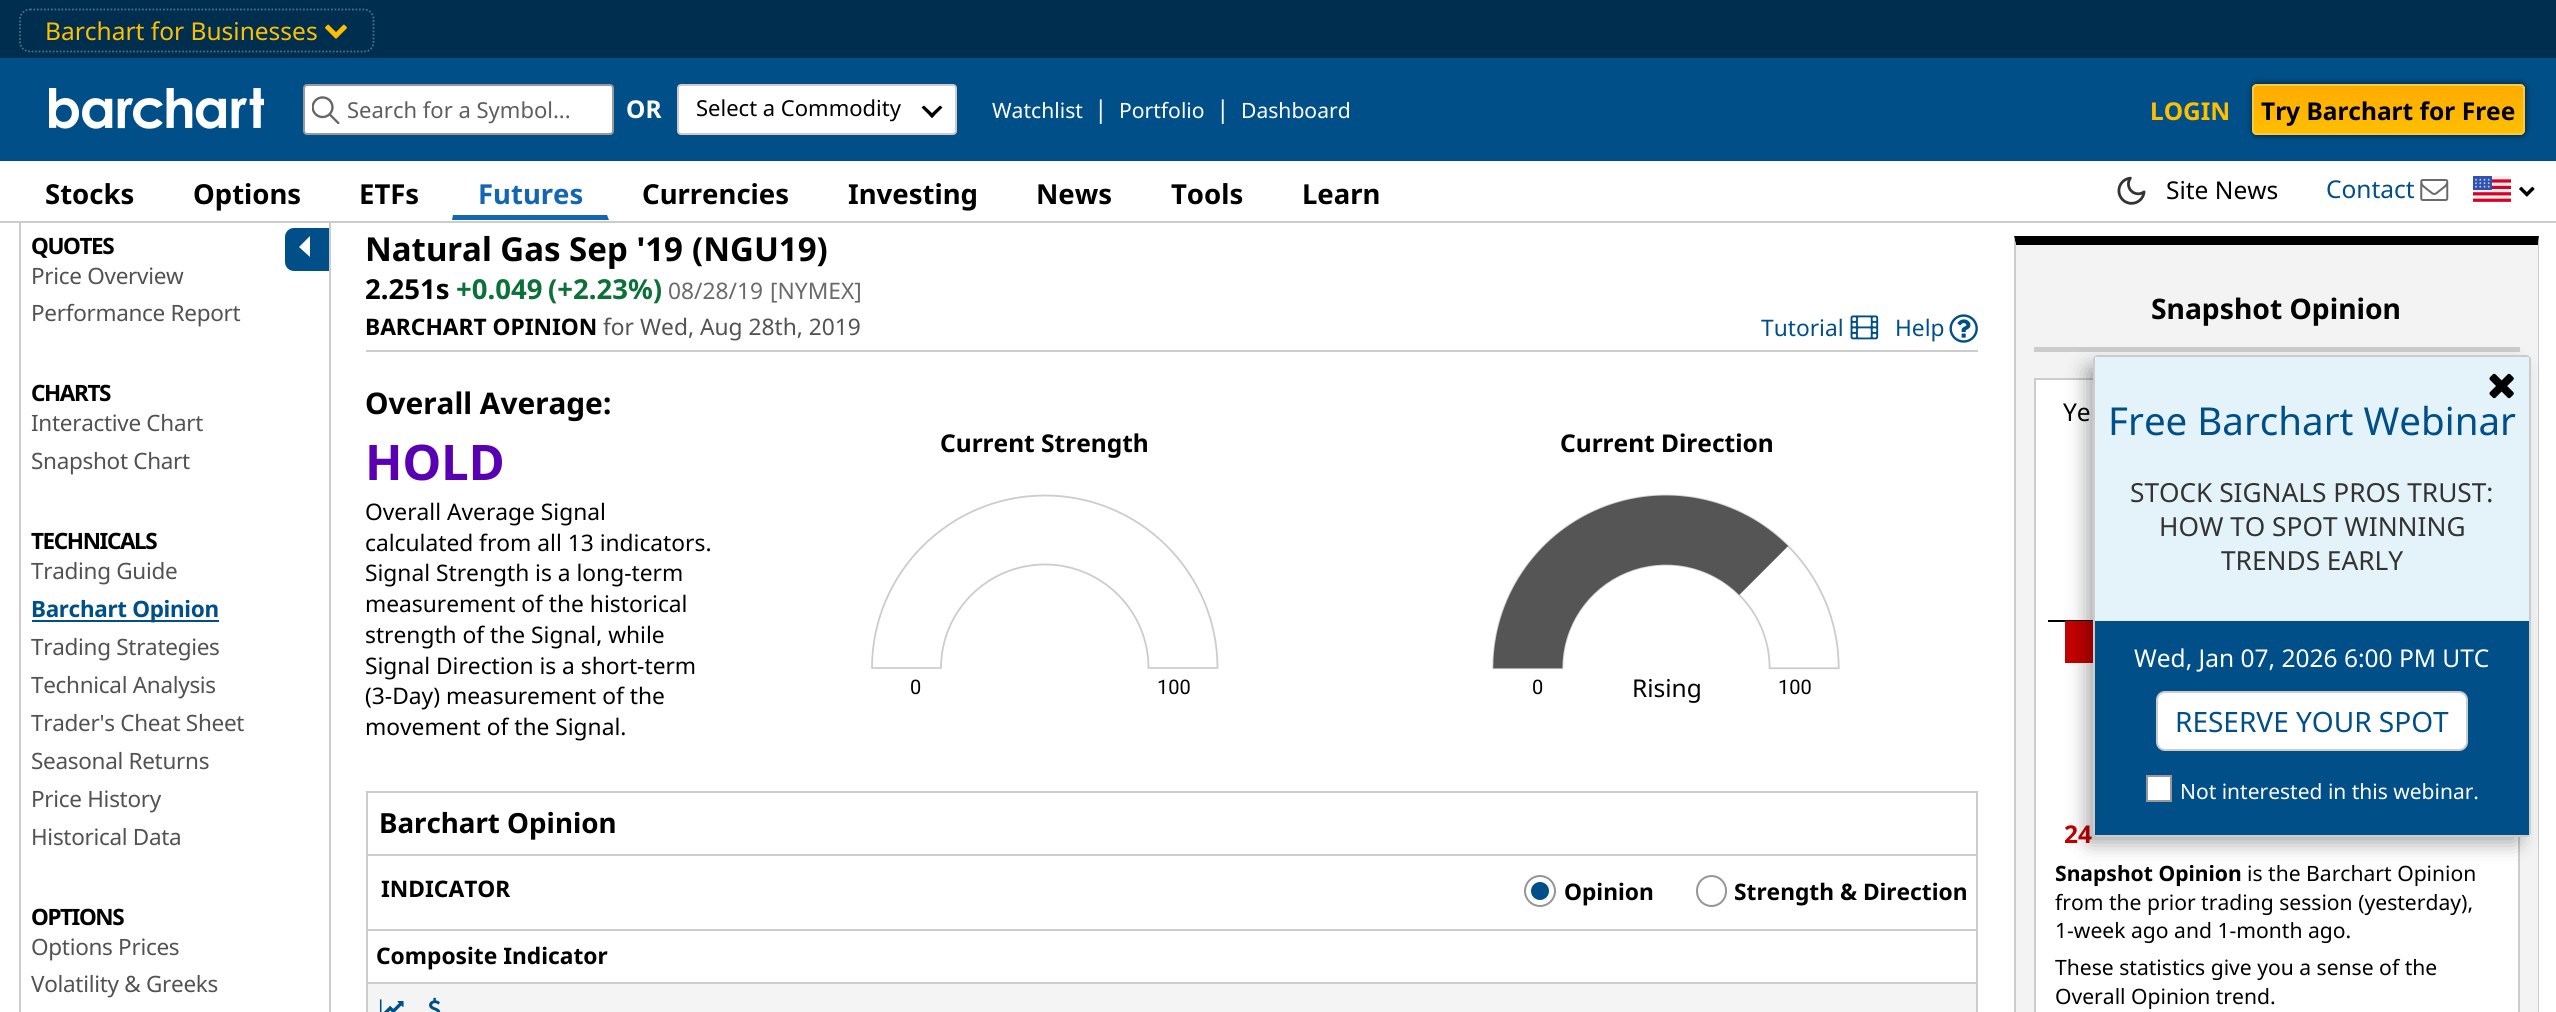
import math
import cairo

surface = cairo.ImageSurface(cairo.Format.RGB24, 2556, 1012)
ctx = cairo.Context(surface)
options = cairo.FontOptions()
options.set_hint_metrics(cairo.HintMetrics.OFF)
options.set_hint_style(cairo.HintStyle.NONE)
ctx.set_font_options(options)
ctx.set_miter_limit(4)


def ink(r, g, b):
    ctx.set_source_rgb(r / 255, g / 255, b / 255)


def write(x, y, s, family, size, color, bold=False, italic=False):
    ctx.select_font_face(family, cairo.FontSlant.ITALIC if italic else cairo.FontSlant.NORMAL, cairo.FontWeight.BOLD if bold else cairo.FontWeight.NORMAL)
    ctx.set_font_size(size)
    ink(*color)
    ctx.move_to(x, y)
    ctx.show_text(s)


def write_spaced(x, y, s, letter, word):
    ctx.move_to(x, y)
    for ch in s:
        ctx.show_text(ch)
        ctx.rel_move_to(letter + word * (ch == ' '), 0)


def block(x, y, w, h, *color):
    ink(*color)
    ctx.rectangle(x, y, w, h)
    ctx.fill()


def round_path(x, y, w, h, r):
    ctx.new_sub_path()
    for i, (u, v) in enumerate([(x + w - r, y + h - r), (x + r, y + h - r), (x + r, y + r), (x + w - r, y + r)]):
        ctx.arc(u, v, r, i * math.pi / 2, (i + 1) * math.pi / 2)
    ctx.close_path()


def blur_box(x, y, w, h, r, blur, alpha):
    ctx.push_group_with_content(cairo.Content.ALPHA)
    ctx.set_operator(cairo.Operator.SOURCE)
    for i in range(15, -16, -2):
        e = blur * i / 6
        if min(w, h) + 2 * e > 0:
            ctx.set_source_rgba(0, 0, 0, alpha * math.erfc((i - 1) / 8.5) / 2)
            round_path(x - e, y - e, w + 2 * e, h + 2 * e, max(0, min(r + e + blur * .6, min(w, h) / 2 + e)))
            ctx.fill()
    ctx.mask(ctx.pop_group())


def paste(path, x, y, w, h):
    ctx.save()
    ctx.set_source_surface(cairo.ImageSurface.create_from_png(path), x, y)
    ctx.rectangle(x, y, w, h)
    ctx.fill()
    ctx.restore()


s1 = dict(family="Noto Sans", size=24.5, color=(255, 191, 0))
s2 = dict(family="Noto Sans", size=22, color=(94, 94, 94))
s3 = dict(family="Noto Sans", size=24.5, color=(255, 255, 255), bold=True)
s4 = dict(family="Noto Sans", size=22, color=(0, 0, 0))
s5 = dict(family="Noto Sans", size=21.1, color=(255, 255, 255))
s6 = dict(family="Noto Sans", size=24.5, color=(255, 255, 255))
s7 = dict(family="Noto Sans", size=24.5, color=(255, 191, 0), bold=True)
s8 = dict(family="Noto Sans", size=24.5, color=(0, 0, 0), bold=True)
s9 = dict(family="Noto Sans", size=27.5, color=(0, 0, 0), bold=True)
s10 = dict(family="Noto Sans", size=27.5, color=(18, 102, 179), bold=True)
s11 = dict(family="Noto Sans", size=24.5, color=(0, 0, 0))
s12 = dict(family="Noto Sans", size=24.5, color=(0, 79, 136))
s13 = dict(family="Noto Sans", size=33, color=(0, 0, 0), bold=True)
s14 = dict(family="Noto Sans", size=27.5, color=(14, 112, 57), bold=True)
s15 = dict(family="Noto Sans", size=22.75, color=(106, 106, 106))
s16 = dict(family="Noto Sans", size=22.75, color=(0, 0, 0), bold=True)
s17 = dict(family="Noto Sans", size=22.75, color=(82, 82, 82))
s18 = dict(family="Noto Sans", size=22.75, color=(0, 79, 136))
s19 = dict(family="Noto Sans", size=29.75, color=(0, 0, 0), bold=True)
s20 = dict(family="Noto Sans", size=49, color=(89, 0, 178), bold=True)
s21 = dict(family="Noto Sans", size=22.75, color=(0, 0, 0))
s22 = dict(family="Roboto", size=20, color=(0, 0, 0))
s23 = dict(family="Noto Sans", size=27.75, color=(0, 0, 0), bold=True)
s24 = dict(family="Noto Sans", size=28.25, color=(0, 0, 0), bold=True)
s25 = dict(family="Noto Sans", size=24.5, color=(196, 0, 0), bold=True)
s26 = dict(family="Noto Sans", size=21.1, color=(0, 0, 0), bold=True)
s27 = dict(family="Noto Sans", size=21.1, color=(0, 0, 0))
s28 = dict(family="Noto Sans", size=38.5, color=(0, 79, 136))
s29 = dict(family="Noto Sans", size=26.25, color=(51, 51, 51))
s30 = dict(family="Noto Sans", size=28, color=(0, 79, 136))
s31 = dict(family="Noto Sans", size=21, color=(255, 255, 255))

ink(255, 255, 255)
ctx.paint()
block(0, 221, 2556, 2, 204, 204, 204)
block(0, 0, 2556, 58, 0, 46, 79)
ctx.new_path()
ctx.move_to(30, 9.5)
ctx.line_to(364, 9.5)
ctx.curve_to(369.5, 9.5, 373.5, 14, 373.5, 19)
ctx.line_to(373.5, 42)
ctx.curve_to(373.5, 47.5, 369.5, 51.5, 364, 51.5)
ctx.line_to(30, 51.5)
ctx.curve_to(24.5, 51.5, 20, 47.5, 20, 42)
ctx.line_to(20, 19)
ctx.curve_to(20, 14, 24.5, 9.5, 30, 9.5)
ctx.close_path()
ink(77, 109, 132)
ctx.set_line_width(1.8)
ctx.set_dash([1.75, 1.75])
ctx.stroke()
write(45, 40, "Barchart for Businesses", **s1)
paste("pic1.png", 325, 24, 22, 15)
block(0, 58, 2556, 103, 0, 79, 136)
paste("pic2.png", 49, 88, 215, 41)
ink(255, 255, 255)
round_path(304, 85, 309, 49, 3)
ctx.fill_preserve()
ink(153, 153, 153)
ctx.set_line_width(2)
ctx.set_dash([])
ctx.stroke()
paste("pic3.png", 312, 96, 28, 28)
write(347, 118, "Search for a Symbol...", **s2)
write(626, 118, "OR", **s3)
round_path(678, 85, 278, 49, 3)
ctx.fill_preserve()
ink(204, 204, 204)
ctx.stroke()
write(696, 116, "Select a Commodity", **s4)
ctx.new_path()
ctx.move_to(940, 105.5)
ctx.line_to(942.5, 107.5)
ctx.line_to(932, 118)
ctx.line_to(929.5, 115.5)
ctx.close_path()
ctx.fill()
ctx.new_path()
ctx.move_to(924, 105.5)
ctx.line_to(934.5, 115.5)
ctx.line_to(932, 118)
ctx.line_to(921.5, 107.5)
ctx.close_path()
ctx.fill()
write(992, 118, "Watchlist", **s5)
write(1094, 118, "|", **s6)
write(1119, 118, "Portfolio", **s5)
write(1216, 118, "|", **s6)
write(1241, 118, "Dashboard", **s5)
write(2150, 120, "LOGIN", **s7)
ink(0, 0, 0)
blur_box(2251, 82, 276, 55, 7, 2.5, 0.4)
ink(255, 191, 0)
round_path(2252, 84, 273, 51, 5)
ctx.fill()
ctx.save()
round_path(2252, 84, 273, 51, 5)
ctx.clip()
gradient = cairo.LinearGradient(2389, 133, 2389, 86)
gradient.add_color_stop_rgba(0, 1, 0.671, 0, 0)
gradient.add_color_stop_rgba(1, 1, 0.671, 0, 1)
ctx.set_source(gradient)
ctx.rectangle(2252, 86, 273, 46)
ctx.fill()
ctx.restore()
round_path(2253, 85, 271, 49, 4)
ink(248, 203, 69)
ctx.stroke()
write(2261, 120, "Try Barchart for Free", **s8)
write(45, 204, "Stocks", **s9)
write(193, 204, "Options", **s9)
write(359, 204, "ETFs", **s9)
ink(18, 102, 179)
ctx.new_path()
ctx.move_to(609, 220)
ctx.line_to(452, 220)
ctx.line_to(453, 215)
ctx.line_to(607, 215)
ctx.close_path()
ctx.fill()
write(478, 204, "Futures", **s10)
write(642, 204, "Currencies", **s9)
write(848, 204, "Investing", **s9)
write(1036, 204, "News", **s9)
write(1171, 204, "Tools", **s9)
write(1302, 204, "Learn", **s9)
paste("pic4.png", 2117, 176, 29, 29)
write(2166, 199, "Site News", **s11)
write(2326, 198, "Contact", **s12)
paste("pic5.png", 2420, 179, 29, 22)
paste("pic6.png", 2473, 176, 38, 26)
paste("pic7.png", 2519, 186, 16, 11)
block(329, 223, 2, 789, 204, 204, 204)
block(19, 223, 2, 789, 204, 204, 204)
ctx.select_font_face("Noto Sans", cairo.FontSlant.NORMAL, cairo.FontWeight.BOLD)
ctx.set_font_size(22.5)
ink(0, 0, 0)
write_spaced(31, 254, "QUOTES", -1.4, 0)
ctx.select_font_face("Noto Sans")
ink(82, 82, 82)
write_spaced(31, 284, "Price Overview", -0.3, 0)
write_spaced(31, 321, "Performance Report", -0.3, 0)
ctx.select_font_face("Noto Sans", cairo.FontSlant.NORMAL, cairo.FontWeight.BOLD)
ink(0, 0, 0)
write_spaced(31, 401, "CHARTS", -1.4, 0)
ctx.select_font_face("Noto Sans")
ink(82, 82, 82)
write_spaced(31, 431, "Interactive Chart", -0.3, 0)
write_spaced(31, 469, "Snapshot Chart", -0.3, 0)
ctx.select_font_face("Noto Sans", cairo.FontSlant.NORMAL, cairo.FontWeight.BOLD)
ink(0, 0, 0)
write_spaced(31, 549, "TECHNICALS", -1.4, 0)
ctx.select_font_face("Noto Sans")
ink(82, 82, 82)
write_spaced(31, 579, "Trading Guide", -0.3, 0)
block(32, 620, 187, 2, 0, 79, 136)
ctx.select_font_face("Noto Sans", cairo.FontSlant.NORMAL, cairo.FontWeight.BOLD)
write_spaced(31, 617, "Barchart Opinion", -0.3, 0)
ctx.select_font_face("Noto Sans")
ink(82, 82, 82)
write_spaced(31, 655, "Trading Strategies", -0.3, 0)
write_spaced(31, 693, "Technical Analysis", -0.3, 0)
write_spaced(31, 731, "Trader's Cheat Sheet", -0.3, 0)
write_spaced(31, 769, "Seasonal Returns", -0.3, 0)
write_spaced(31, 807, "Price History", -0.3, 0)
write_spaced(31, 845, "Historical Data", -0.3, 0)
ctx.select_font_face("Noto Sans", cairo.FontSlant.NORMAL, cairo.FontWeight.BOLD)
ink(0, 0, 0)
write_spaced(31, 925, "OPTIONS", -1.4, 0)
ctx.select_font_face("Noto Sans")
ink(82, 82, 82)
write_spaced(31, 955, "Options Prices", -0.3, 0)
write_spaced(31, 992, "Volatility & Greeks", -0.3, 0)
ink(0, 79, 136)
ctx.new_path()
ctx.move_to(294, 228)
ctx.line_to(329, 228)
ctx.line_to(329, 271)
ctx.line_to(294, 271)
ctx.curve_to(289, 271, 285, 267, 285, 262)
ctx.line_to(285, 237)
ctx.curve_to(285, 232, 289, 228, 294, 228)
ctx.close_path()
ctx.fill()
ink(255, 255, 255)
ctx.new_path()
ctx.move_to(310, 236)
ctx.line_to(310, 257)
ctx.line_to(299, 247)
ctx.close_path()
ctx.fill()
block(366, 350, 1612, 2, 204, 204, 204)
write(365, 261, "Natural Gas Sep '19", **s13)
write(692, 261, "(NGU19)", **s13)
write(365, 299, "2.251s", **s9)
write(456, 299, "+0.049", **s14)
write(548, 299, "(+2.23%)", **s14)
write(668, 299, "08/28/19", **s15)
write(770, 299, "[NYMEX]", **s15)
write(365, 335, "BARCHART OPINION", **s16)
write(603, 335, "for Wed, Aug 28th, 2019", **s17)
write(1761, 336, "Tutorial", **s18)
paste("pic8.png", 1850, 315, 29, 25)
write(1895, 336, "Help", **s18)
paste("pic9.png", 1949, 314, 29, 29)
write(365, 414, "Overall Average:", **s19)
write(365, 480, "HOLD", **s20)
write(365, 520, "Overall Average Signal", **s21)
write(365, 551, "calculated from all 13 indicators.", **s21)
write(365, 581, "Signal Strength is a long-term", **s21)
write(365, 612, "measurement of the historical", **s21)
write(365, 643, "strength of the Signal, while", **s21)
write(365, 674, "Signal Direction is a short-term", **s21)
write(365, 704, "(3-Day) measurement of the", **s21)
write(365, 735, "movement of the Signal.", **s21)
write(940, 452, "Current Strength", **s8)
write(910, 694, "0", **s22)
ctx.new_path()
ctx.move_to(872, 668)
ctx.curve_to(872, 573, 949.5, 495.5, 1045, 495.5)
ctx.curve_to(1140, 495.5, 1217.5, 573, 1217.5, 668)
ctx.line_to(1148.5, 668)
ctx.curve_to(1148.5, 611, 1102, 564.5, 1045, 564.5)
ctx.curve_to(987.5, 564.5, 941, 611, 941, 668)
ctx.close_path()
ink(204, 204, 204)
ctx.set_line_width(1.8)
ctx.stroke()
write(1157, 694, "100", **s22)
write(1560, 452, "Current Direction", **s8)
paste("pic10.png", 1492, 494, 348, 176)
write(1532, 694, "0", **s22)
write(1632, 697, "Rising", **s11)
write(1778, 694, "100", **s22)
block(366, 791, 1612, 2, 204, 204, 204)
block(1976, 791, 2, 63, 204, 204, 204)
block(366, 791, 2, 63, 204, 204, 204)
write(379, 833, "Barchart Opinion", **s23)
block(366, 854, 1612, 2, 204, 204, 204)
block(1976, 854, 2, 75, 204, 204, 204)
block(366, 854, 2, 75, 204, 204, 204)
write(381, 897, "INDICATOR", **s16)
ctx.new_path()
ctx.arc(1540, 891, 15, 0, 2 * math.pi)
ink(149, 149, 149)
ctx.set_line_width(2)
ctx.stroke()
ink(0, 79, 136)
ctx.arc(1540, 891, 9, 0, 2 * math.pi)
ctx.fill()
write(1564, 900, "Opinion", **s16)
round_path(1697, 876, 29, 30, 14.5)
ink(149, 149, 149)
ctx.stroke()
write(1734, 900, "Strength & Direction", **s16)
block(366, 929, 1612, 2, 204, 204, 204)
block(1976, 929, 2, 83, 204, 204, 204)
block(366, 982, 2, 30, 204, 204, 204)
block(366, 982, 1612, 2, 204, 204, 204)
block(366, 929, 2, 55, 204, 204, 204)
write(376, 964, "Composite Indicator", **s16)
block(368, 984, 1608, 28, 244, 244, 244)
paste("pic11.png", 379, 999, 25, 13)
paste("pic12.png", 429, 997, 12, 15)
block(2016, 245, 522, 767, 243, 243, 243)
ink(0, 0, 0)
ctx.new_path()
ctx.move_to(2014, 236)
ctx.line_to(2539, 236)
ctx.line_to(2538, 245)
ctx.line_to(2016, 245)
ctx.close_path()
ctx.fill()
ink(204, 204, 204)
ctx.new_path()
ctx.move_to(2539, 236)
ctx.line_to(2539, 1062)
ctx.line_to(2538, 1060)
ctx.line_to(2538, 245)
ctx.close_path()
ctx.fill()
ctx.new_path()
ctx.move_to(2014, 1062)
ctx.line_to(2014, 236)
ctx.line_to(2016, 245)
ctx.line_to(2016, 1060)
ctx.close_path()
ctx.fill()
block(2034, 347, 486, 5, 204, 204, 204)
write(2151, 319, "Snapshot Opinion", **s24)
ink(255, 255, 255)
ctx.rectangle(2035, 379, 484, 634)
ctx.fill_preserve()
ink(204, 204, 204)
ctx.stroke()
write(2063, 421, "Ye", **s11)
block(2048, 620, 45, 2, 0, 0, 0)
block(2065, 621, 28, 42, 196, 0, 0)
write(2064, 843, "24", **s25)
write(2055, 881, "Snapshot Opinion", **s26)
write(2247, 881, "is the Barchart Opinion", **s27)
write(2055, 910, "from the prior trading session (yesterday),", **s27)
write(2055, 938, "1-week ago and 1-month ago.", **s27)
write(2055, 975, "These statistics give you a sense of the", **s27)
write(2055, 1004, "Overall Opinion trend.", **s27)
ink(0, 0, 0)
blur_box(2088, 368, 430, 474, 2, 10.5, 0.38)
round_path(2094, 356, 436, 480, 4)
ink(204, 204, 204)
ctx.stroke()
block(2095, 357, 434, 264, 227, 243, 249)
paste("pic13.png", 2489, 373, 25, 26)
write(2108, 435, "Free Barchart Webinar", **s28)
write(2130, 502, "STOCK SIGNALS PROS TRUST:", **s29)
write(2159, 536, "HOW TO SPOT WINNING", **s29)
write(2221, 570, "TRENDS EARLY", **s29)
block(2095, 621, 434, 214, 0, 79, 136)
write(2134, 667, "Wed, Jan 07, 2026 6:00 PM UTC", **s6)
round_path(2157, 692, 310, 58, 8)
ctx.fill_preserve()
ink(204, 204, 204)
ctx.stroke()
write(2175, 732, "RESERVE YOUR SPOT", **s30)
ink(255, 255, 255)
ctx.rectangle(2147, 776, 24, 25)
ctx.fill_preserve()
ink(153, 153, 153)
ctx.stroke()
write(2180, 799, "Not interested in this webinar.", **s31)
surface.write_to_png("screenshot.png")
